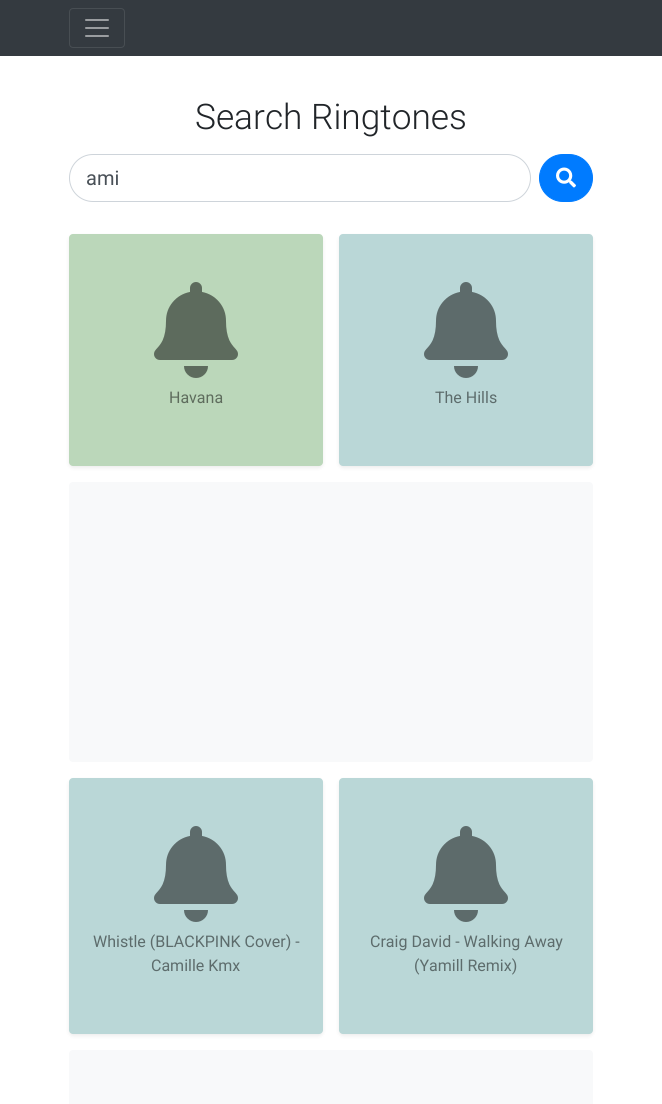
import math
import cairo

surface = cairo.ImageSurface(cairo.Format.RGB24, 662, 1104)
ctx = cairo.Context(surface)
options = cairo.FontOptions()
options.set_hint_metrics(cairo.HintMetrics.OFF)
options.set_hint_style(cairo.HintStyle.NONE)
ctx.set_font_options(options)
ctx.set_miter_limit(4)


def ink(r, g, b):
    ctx.set_source_rgb(r / 255, g / 255, b / 255)


def write(x, y, s, family, size, color, bold=False, italic=False):
    ctx.select_font_face(family, cairo.FontSlant.ITALIC if italic else cairo.FontSlant.NORMAL, cairo.FontWeight.BOLD if bold else cairo.FontWeight.NORMAL)
    ctx.set_font_size(size)
    ink(*color)
    ctx.move_to(x, y)
    ctx.show_text(s)


def block(x, y, w, h, *color):
    ink(*color)
    ctx.rectangle(x, y, w, h)
    ctx.fill()


def round_path(x, y, w, h, r):
    ctx.new_sub_path()
    for i, (u, v) in enumerate([(x + w - r, y + h - r), (x + r, y + h - r), (x + r, y + r), (x + w - r, y + r)]):
        ctx.arc(u, v, r, i * math.pi / 2, (i + 1) * math.pi / 2)
    ctx.close_path()


def blur_box(x, y, w, h, r, blur, alpha):
    ctx.push_group_with_content(cairo.Content.ALPHA)
    ctx.set_operator(cairo.Operator.SOURCE)
    for i in range(15, -16, -2):
        e = blur * i / 6
        if min(w, h) + 2 * e > 0:
            ctx.set_source_rgba(0, 0, 0, alpha * math.erfc((i - 1) / 8.5) / 2)
            round_path(x - e, y - e, w + 2 * e, h + 2 * e, max(0, min(r + e + blur * .6, min(w, h) / 2 + e)))
            ctx.fill()
    ctx.mask(ctx.pop_group())


def paste(path, x, y, w, h):
    ctx.save()
    ctx.set_source_surface(cairo.ImageSurface.create_from_png(path), x, y)
    ctx.rectangle(x, y, w, h)
    ctx.fill()
    ctx.restore()


s1 = dict(family="Roboto Light", size=35.25, color=(33, 37, 41))
s2 = dict(family="Roboto", size=20, color=(73, 80, 87))
s3 = dict(family="Roboto", size=16, color=(94, 108, 93))
s4 = dict(family="Roboto", size=16, color=(93, 108, 108))

ink(255, 255, 255)
ctx.paint()
block(0, 0, 662, 56, 52, 58, 64)
round_path(69.5, 8.5, 55, 39, 3.5)
ink(72, 78, 83)
ctx.set_line_width(1)
ctx.stroke()
paste("pic1.png", 85, 19, 24, 18)
write(195, 129, "Search Ringtones", **s1)
round_path(69.5, 154.5, 461, 47, 23.5)
ink(206, 212, 218)
ctx.stroke()
write(86, 185, "ami", **s2)
ink(0, 123, 255)
round_path(539.5, 154.5, 53, 47, 23.5)
ctx.fill_preserve()
ctx.stroke()
paste("pic2.png", 556, 167, 20, 21)
ink(0, 0, 0)
blur_box(69, 236, 254, 232, 4, 2, 0.07)
ink(187, 215, 186)
round_path(69, 234, 254, 232, 4)
ctx.fill()
paste("pic3.png", 154, 282, 84, 96)
write(169, 403, "Havana", **s3)
ink(0, 0, 0)
blur_box(339, 236, 254, 232, 4, 2, 0.07)
ink(186, 215, 215)
round_path(339, 234, 254, 232, 4)
ctx.fill()
paste("pic4.png", 424, 282, 84, 96)
write(435, 403, "The Hills", **s4)
ink(248, 249, 250)
round_path(69, 482, 524, 280, 4)
ctx.fill()
ink(0, 0, 0)
blur_box(69, 780, 254, 256, 4, 2, 0.07)
ink(186, 215, 215)
round_path(69, 778, 254, 256, 4)
ctx.fill()
paste("pic4.png", 154, 826, 84, 96)
write(93, 947, "Whistle (BLACKPINK Cover) -", **s4)
write(151, 971, "Camille Kmx", **s4)
ink(0, 0, 0)
blur_box(339, 780, 254, 256, 4, 2, 0.07)
ink(186, 215, 215)
round_path(339, 778, 254, 256, 4)
ctx.fill()
paste("pic4.png", 424, 826, 84, 96)
write(370, 947, "Craig David - Walking Away", **s4)
write(414, 971, "(Yamill Remix)", **s4)
ink(248, 249, 250)
round_path(69, 1050, 524, 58, 4)
ctx.fill()
surface.write_to_png("screenshot.png")
